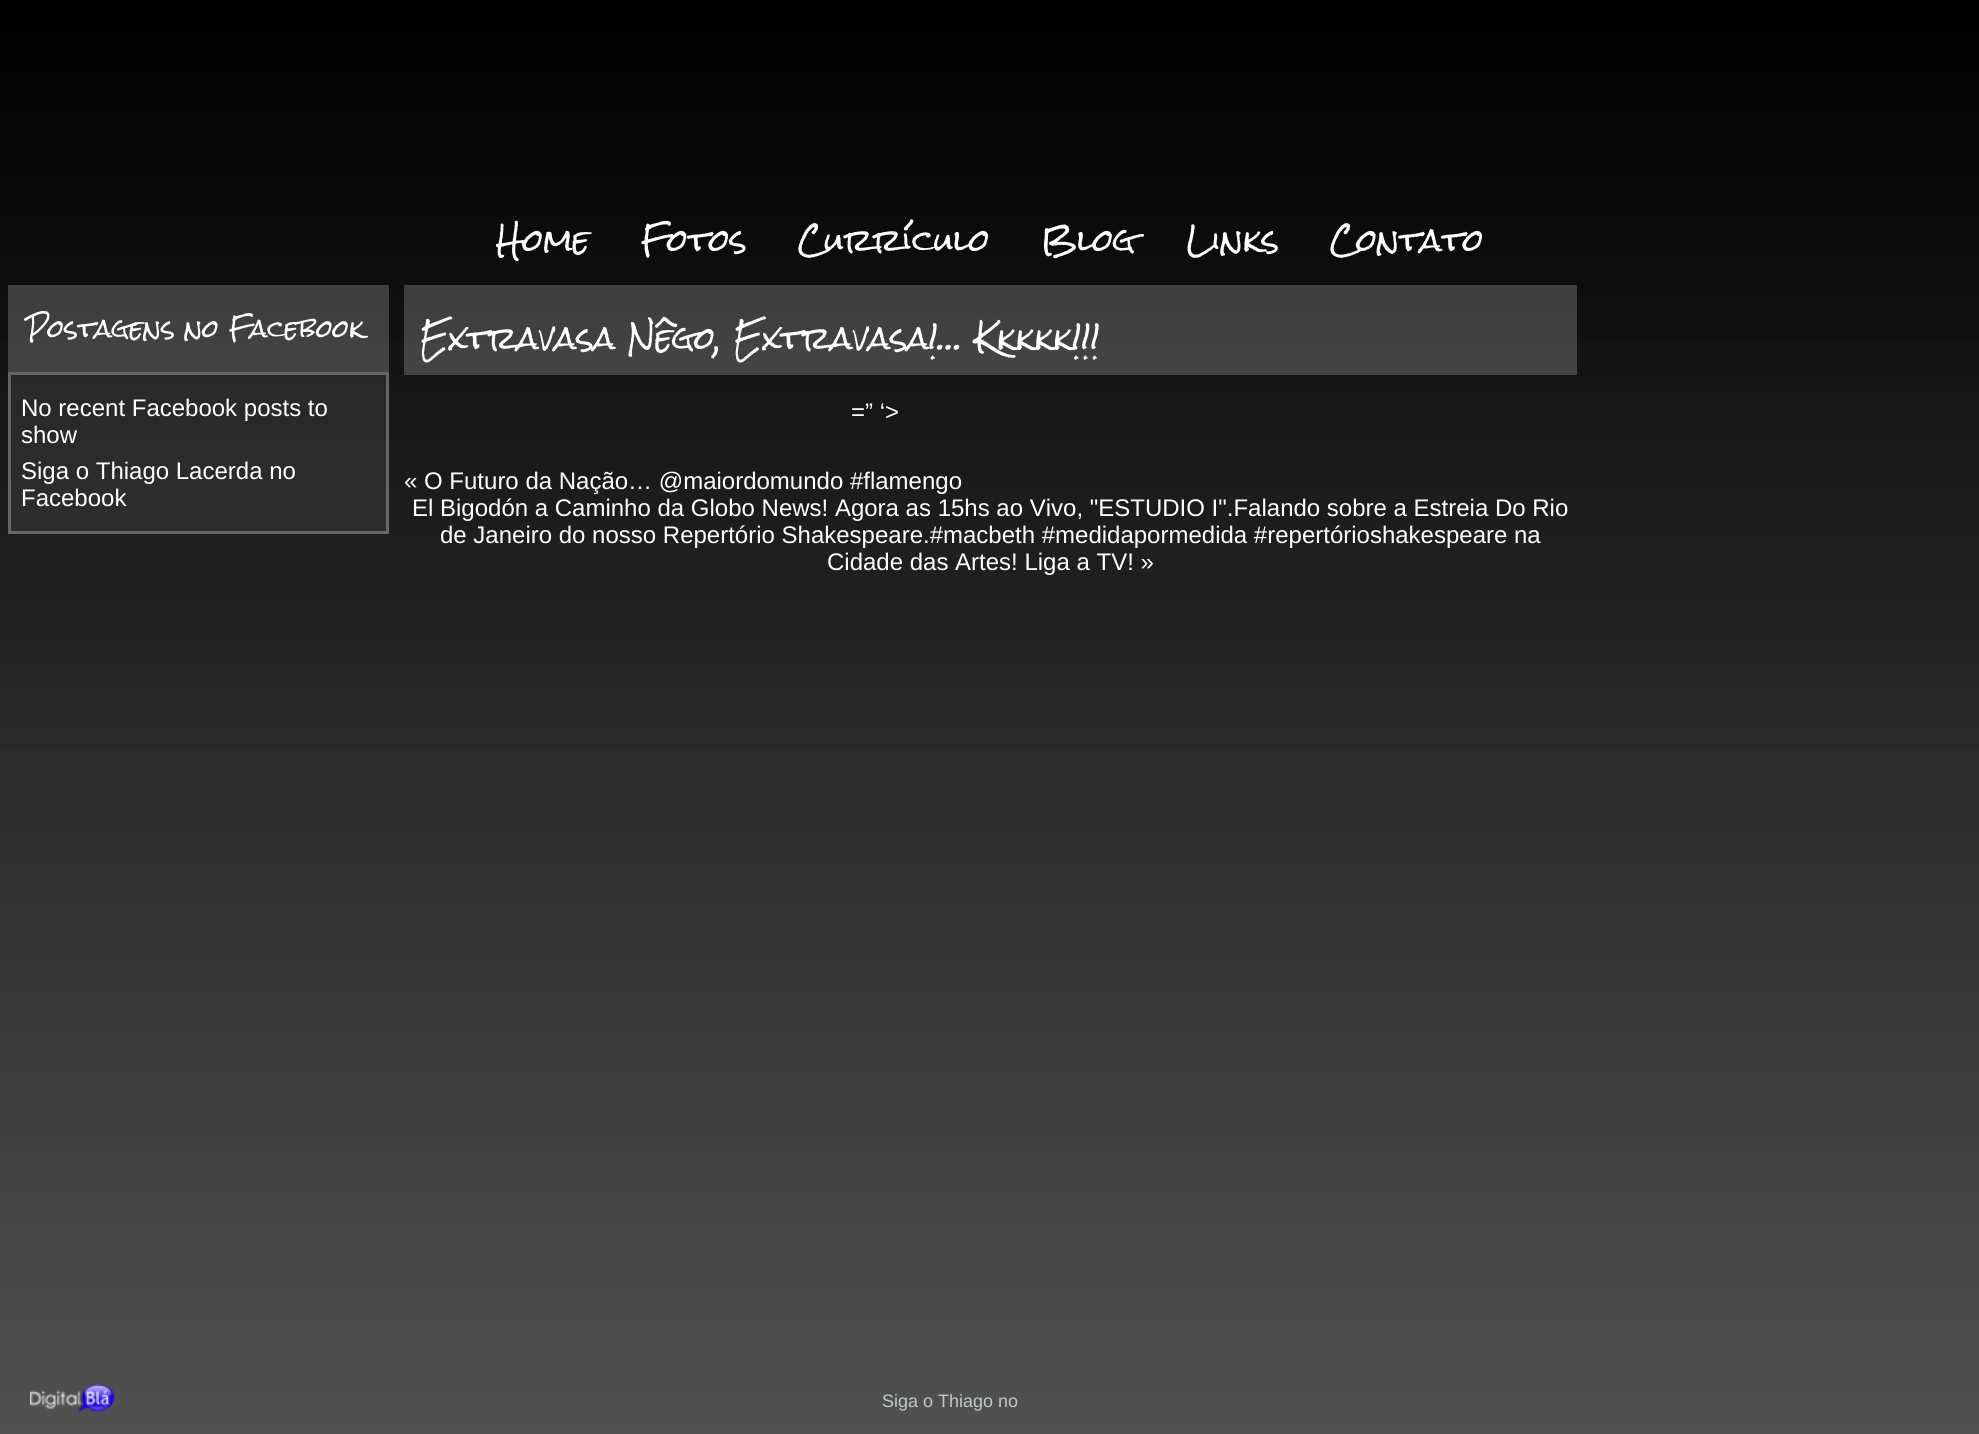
import math
import cairo

surface = cairo.ImageSurface(cairo.Format.RGB24, 1979, 1434)
ctx = cairo.Context(surface)
options = cairo.FontOptions()
options.set_hint_metrics(cairo.HintMetrics.OFF)
options.set_hint_style(cairo.HintStyle.NONE)
ctx.set_font_options(options)
ctx.set_miter_limit(4)


def ink(r, g, b):
    ctx.set_source_rgb(r / 255, g / 255, b / 255)


def write(x, y, s, family, size, color, bold=False, italic=False):
    ctx.select_font_face(family, cairo.FontSlant.ITALIC if italic else cairo.FontSlant.NORMAL, cairo.FontWeight.BOLD if bold else cairo.FontWeight.NORMAL)
    ctx.set_font_size(size)
    ink(*color)
    ctx.move_to(x, y)
    ctx.show_text(s)


def paste(path, x, y, w, h):
    ctx.save()
    ctx.set_source_surface(cairo.ImageSurface.create_from_png(path), x, y)
    ctx.rectangle(x, y, w, h)
    ctx.fill()
    ctx.restore()


s1 = dict(family="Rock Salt", size=30, color=(255, 255, 255))
s2 = dict(family="Rock Salt", size=24, color=(255, 255, 255))
s3 = dict(family="Liberation Sans", size=24, color=(255, 255, 255))
s4 = dict(family="Liberation Sans", size=18, color=(192, 202, 198))

ink(255, 255, 255)
ctx.paint()
gradient = cairo.LinearGradient(990, 0, 990, 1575)
gradient.add_color_stop_rgba(0, 0, 0, 0, 1)
gradient.add_color_stop_rgba(1, 0.302, 0.302, 0.302, 1)
ctx.set_source(gradient)
ctx.rectangle(0, 0, 1979, 1434)
ctx.fill()
gradient = cairo.LinearGradient(990, 0, 990, 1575)
gradient.add_color_stop_rgba(0, 0, 0, 0, 0.24)
gradient.add_color_stop_rgba(1, 0.451, 0.451, 0.451, 0.33)
ctx.set_source(gradient)
ctx.rectangle(0, 343, 1979, 1091)
ctx.fill()
write(496, 252, "Home", **s1)
write(641, 252, "Fotos", **s1)
write(798, 252, "Currículo", **s1)
write(1041, 252, "Blog", **s1)
write(1186, 252, "Links", **s1)
write(1330, 252, "Contato", **s1)
ctx.set_source_rgba(1, 1, 1, 0.2)
ctx.rectangle(8, 285, 381, 249)
ctx.fill()
write(26, 338, "Postagens no Facebook", **s2)
ctx.set_source_rgba(0, 0, 0, 0.4)
ctx.rectangle(8, 372, 381, 162)
ctx.fill()
ctx.rectangle(9.5, 373.5, 378, 159)
ctx.set_source_rgba(0.714, 0.749, 0.788, 0.4)
ctx.set_line_width(3)
ctx.stroke()
write(21, 416, "No recent Facebook posts to", **s3)
write(21, 443, "show", **s3)
write(21, 479, "Siga o Thiago Lacerda no", **s3)
write(21, 506, "Facebook", **s3)
ctx.set_source_rgba(1, 1, 1, 0.2)
ctx.rectangle(404, 285, 1173, 90)
ctx.fill()
write(420, 350, "Extravasa Nêgo, Extravasa!… Kkkkk!!!", **s1)
write(851, 420, "=” ‘>", **s3)
write(404, 489, "« O Futuro da Nação… @maiordomundo #flamengo", **s3)
write(412, 516, "El Bigodón a Caminho da Globo News! Agora as 15hs ao Vivo, \"ESTUDIO I\".Falando sobre a Estreia Do Rio", **s3)
write(440, 543, "de Janeiro do nosso Repertório Shakespeare.#macbeth #medidapormedida #repertórioshakespeare na", **s3)
write(827, 570, "Cidade das Artes! Liga a TV! »", **s3)
paste("pic1.png", 30, 1384, 84, 28)
write(882, 1407, "Siga o Thiago no", **s4)
surface.write_to_png("screenshot.png")
